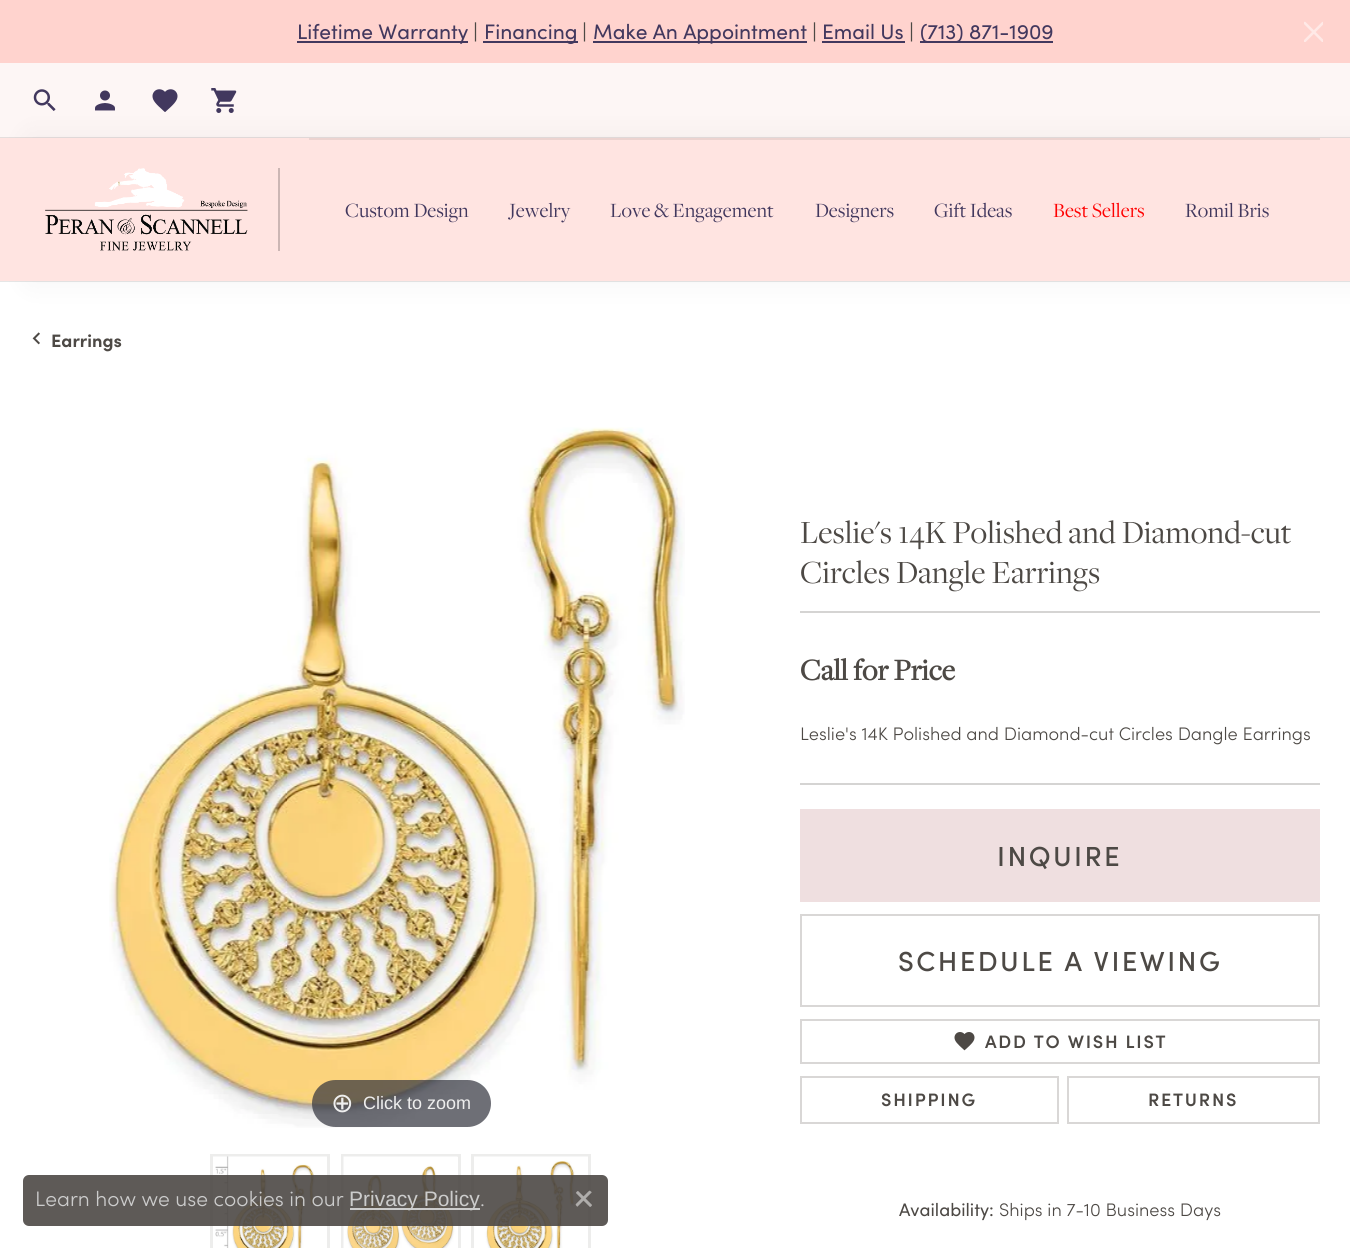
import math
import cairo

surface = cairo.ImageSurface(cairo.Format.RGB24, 1350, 1248)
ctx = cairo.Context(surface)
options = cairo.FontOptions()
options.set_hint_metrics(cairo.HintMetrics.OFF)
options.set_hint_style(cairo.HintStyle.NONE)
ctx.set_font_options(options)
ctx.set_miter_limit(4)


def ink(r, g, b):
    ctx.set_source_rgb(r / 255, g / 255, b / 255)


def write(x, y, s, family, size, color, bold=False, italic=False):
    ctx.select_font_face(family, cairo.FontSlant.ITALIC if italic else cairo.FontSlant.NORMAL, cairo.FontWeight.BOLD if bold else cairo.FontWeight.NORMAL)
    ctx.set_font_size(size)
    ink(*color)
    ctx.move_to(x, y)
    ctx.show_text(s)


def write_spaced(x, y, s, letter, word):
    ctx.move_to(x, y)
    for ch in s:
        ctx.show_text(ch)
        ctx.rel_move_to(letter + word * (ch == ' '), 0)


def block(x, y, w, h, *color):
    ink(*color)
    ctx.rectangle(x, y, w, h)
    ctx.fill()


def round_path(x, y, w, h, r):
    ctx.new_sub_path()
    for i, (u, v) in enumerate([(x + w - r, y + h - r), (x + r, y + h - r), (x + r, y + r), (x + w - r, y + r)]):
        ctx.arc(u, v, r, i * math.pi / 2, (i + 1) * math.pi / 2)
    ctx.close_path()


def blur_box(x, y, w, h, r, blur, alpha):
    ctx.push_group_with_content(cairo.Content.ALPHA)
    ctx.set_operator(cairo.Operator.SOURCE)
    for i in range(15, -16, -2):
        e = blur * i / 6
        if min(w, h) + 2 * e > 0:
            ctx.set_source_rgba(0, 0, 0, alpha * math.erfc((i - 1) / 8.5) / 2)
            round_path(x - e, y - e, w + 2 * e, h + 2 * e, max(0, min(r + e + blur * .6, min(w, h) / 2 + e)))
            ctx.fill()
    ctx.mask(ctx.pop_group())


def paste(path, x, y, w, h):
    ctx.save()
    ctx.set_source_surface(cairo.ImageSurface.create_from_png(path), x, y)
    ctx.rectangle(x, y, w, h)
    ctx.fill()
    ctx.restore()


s1 = dict(family="Sofia", size=21, color=(66, 56, 94))
s2 = dict(family="Sofia", size=21, color=(77, 73, 69))
s3 = dict(family="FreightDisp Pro", size=21, color=(66, 56, 94))
s4 = dict(family="FreightDisp Pro", size=21, color=(255, 0, 0))
s5 = dict(family="Sofia", size=18, color=(77, 73, 69), bold=True)
s6 = dict(family="DejaVu Sans", size=27, color=(238, 238, 238))
s7 = dict(family="Liberation Sans", size=18, color=(238, 238, 238))
s8 = dict(family="FreightDisp Pro", size=33.5, color=(77, 73, 69))
s9 = dict(family="FreightDisp Pro", size=31, color=(77, 73, 69), bold=True)
s10 = dict(family="Sofia Light", size=18.15, color=(77, 73, 69))
s11 = dict(family="Sofia", size=18.15, color=(77, 73, 69))
s12 = dict(family="Sofia Light", size=21, color=(204, 204, 204))
s13 = dict(family="Liberation Sans", size=21, color=(204, 204, 204))

ink(255, 211, 206)
ctx.paint()
block(297, 41, 171, 2, 66, 56, 94)
write(297, 39, "Lifetime Warranty", **s1)
write(473, 39, "|", **s2)
block(483, 41, 95, 2, 66, 56, 94)
write(484, 39, "Financing", **s1)
write(582, 39, "|", **s2)
block(593, 41, 214, 2, 66, 56, 94)
write(593, 39, "Make An Appointment", **s1)
write(812, 39, "|", **s2)
write(822, 39, "Email Us", **s1)
block(822, 41, 83, 2, 66, 56, 94)
write(909, 39, "|", **s2)
block(920, 41, 133, 2, 66, 56, 94)
write(920, 39, "(713) 871-1909", **s1)
paste("pic1.png", 1304, 21, 19, 21)
block(0, 63, 1350, 75, 253, 246, 245)
paste("pic2.png", 33, 89, 23, 22)
paste("pic3.png", 95, 90, 20, 21)
paste("pic4.png", 152, 89, 26, 23)
paste("pic5.png", 211, 88, 26, 25)
block(0, 281, 1350, 967, 255, 255, 255)
ink(0, 0, 0)
blur_box(30, 138, 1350, 143, 0, 15, 0.05)
ctx.rectangle(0, 138, 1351, 143)
ctx.set_source_rgba(0, 0, 0, 0.1)
ctx.stroke()
block(0, 138, 1350, 143, 255, 228, 225)
block(278, 168, 2, 83, 204, 182, 180)
paste("pic6.png", 45, 168, 203, 83)
block(309, 138, 1011, 2, 236, 211, 208)
write(345, 217, "Custom Design", **s3)
write(509, 217, "Jewelry", **s3)
write(610, 217, "Love & Engagement", **s3)
write(815, 217, "Designers", **s3)
write(934, 217, "Gift Ideas", **s3)
write(1053, 217, "Best Sellers", **s4)
write(1185, 217, "Romil Bris", **s3)
paste("pic7.png", 32, 332, 8, 13)
write(51, 347, "Earrings", **s5)
paste("pic8.png", 109, 427, 576, 701)
ctx.set_source_rgba(0.192, 0.2, 0.239, 0.7)
round_path(312, 1080, 179, 47, 23.5)
ctx.fill()
write(331, 1112, "⊕", **s6)
write(363, 1109, "Click to zoom", **s7)
ctx.rectangle(211.5, 1155.5, 117, 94)
ink(237, 237, 236)
ctx.set_line_width(3)
ctx.stroke()
paste("pic9.png", 213, 1156, 114, 92)
ctx.rectangle(342.5, 1155.5, 117, 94)
ctx.stroke()
paste("pic10.png", 343, 1156, 115, 92)
ctx.rectangle(472.5, 1155.5, 117, 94)
ctx.stroke()
paste("pic11.png", 474, 1156, 114, 92)
write(800, 543, "Leslie's 14K Polished and Diamond-cut", **s8)
write(800, 583, "Circles Dangle Earrings", **s8)
block(800, 611, 520, 2, 213, 212, 211)
write(800, 680, "Call for Price", **s9)
write(800, 740, "Leslie's 14K Polished and Diamond-cut Circles Dangle Earrings", **s10)
block(800, 783, 520, 2, 213, 212, 211)
block(800, 809, 520, 93, 239, 223, 224)
ctx.select_font_face("Sofia Medium")
ctx.set_font_size(27.6)
ink(77, 73, 69)
write_spaced(997, 866, "INQUIRE", 2.4, 0)
ctx.rectangle(801, 915, 518, 91)
ink(217, 215, 214)
ctx.set_line_width(2)
ctx.stroke()
ink(77, 73, 69)
write_spaced(898, 971, "SCHEDULE A VIEWING", 2.4, 0)
ctx.rectangle(801, 1020, 518, 43)
ink(217, 215, 214)
ctx.stroke()
paste("pic12.png", 954, 1032, 21, 19)
ctx.select_font_face("Sofia SemiBold")
ctx.set_font_size(18)
ink(77, 73, 69)
write_spaced(985, 1048, "ADD TO WISH LIST", 1.75, 0)
ctx.rectangle(801, 1077, 257, 46)
ink(217, 215, 214)
ctx.stroke()
ink(77, 73, 69)
write_spaced(881, 1106, "SHIPPING", 1.75, 0)
ctx.rectangle(1068, 1077, 251, 46)
ink(217, 215, 214)
ctx.stroke()
ink(77, 73, 69)
write_spaced(1148, 1106, "RETURNS", 1.75, 0)
write(899, 1216, "Availability:", **s11)
write(999, 1216, "Ships in 7-10 Business Days", **s10)
ctx.set_source_rgba(0.302, 0.286, 0.271, 0.9)
round_path(23, 1175, 585, 51, 6)
ctx.fill()
write(35, 1206, "Learn how we use cookies in our", **s12)
block(350, 1208, 130, 2, 204, 204, 204)
write(349, 1206, "Privacy Policy", **s13)
write(480, 1206, ".", **s12)
paste("pic13.png", 575, 1190, 17, 17)
surface.write_to_png("screenshot.png")
